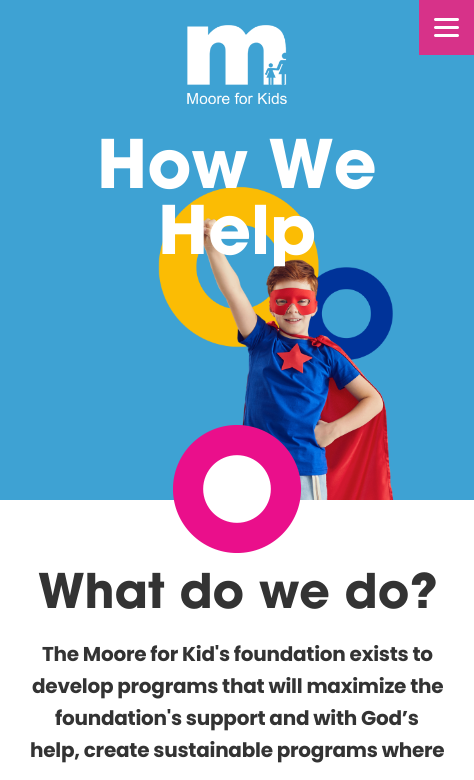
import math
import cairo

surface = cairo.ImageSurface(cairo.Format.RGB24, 474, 780)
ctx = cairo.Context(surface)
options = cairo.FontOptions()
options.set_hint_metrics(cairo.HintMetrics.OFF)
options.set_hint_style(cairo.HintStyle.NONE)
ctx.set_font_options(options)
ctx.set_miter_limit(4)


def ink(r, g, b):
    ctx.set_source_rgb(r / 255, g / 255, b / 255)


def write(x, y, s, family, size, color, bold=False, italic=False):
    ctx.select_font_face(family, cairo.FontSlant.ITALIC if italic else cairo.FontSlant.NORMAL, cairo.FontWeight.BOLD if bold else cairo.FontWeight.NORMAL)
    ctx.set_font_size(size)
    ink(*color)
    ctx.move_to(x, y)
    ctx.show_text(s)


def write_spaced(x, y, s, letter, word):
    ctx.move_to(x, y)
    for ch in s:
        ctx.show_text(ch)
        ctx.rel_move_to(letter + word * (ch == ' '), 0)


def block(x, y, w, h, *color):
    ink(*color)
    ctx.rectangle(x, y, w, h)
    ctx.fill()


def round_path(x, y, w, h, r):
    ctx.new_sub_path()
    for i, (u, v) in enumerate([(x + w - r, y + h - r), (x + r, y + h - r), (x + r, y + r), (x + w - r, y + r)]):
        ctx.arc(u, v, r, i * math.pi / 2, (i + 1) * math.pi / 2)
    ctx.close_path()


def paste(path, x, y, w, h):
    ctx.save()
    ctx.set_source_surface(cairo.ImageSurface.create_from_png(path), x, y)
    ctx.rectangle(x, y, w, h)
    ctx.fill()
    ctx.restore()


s1 = dict(family="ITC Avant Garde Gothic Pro", size=66.5, color=(255, 255, 255), bold=True)
s2 = dict(family="ITC Avant Garde Gothic Pro", size=47.5, color=(51, 51, 51), bold=True)

ink(255, 255, 255)
ctx.paint()
block(0, 0, 474, 500, 62, 162, 211)
paste("pic1.png", 187, 25, 100, 79)
block(419, 0, 55, 55, 215, 50, 137)
ink(255, 255, 255)
round_path(434, 34, 25, 3, 1.5)
ctx.fill()
round_path(434, 18, 25, 3, 1.5)
ctx.fill()
round_path(434, 26, 25, 3, 1.5)
ctx.fill()
paste("pic2.png", 158, 186, 236, 314)
write(97, 188, "How We", **s1)
write(158, 254, "Help", **s1)
paste("pic3.png", 173, 425, 128, 128)
write(38, 608, "What do we do?", **s2)
ctx.select_font_face("Poppins", cairo.FontSlant.NORMAL, cairo.FontWeight.BOLD)
ctx.set_font_size(20)
write_spaced(42, 661, "The Moore for Kid's foundation exists to", -0.25, 0)
write_spaced(32, 693, "develop programs that will maximize the", -0.25, 0)
write_spaced(55, 725, "foundation's support and with God’s", -0.25, 0)
write_spaced(30, 757, "help, create sustainable programs where", -0.25, 0)
surface.write_to_png("screenshot.png")
